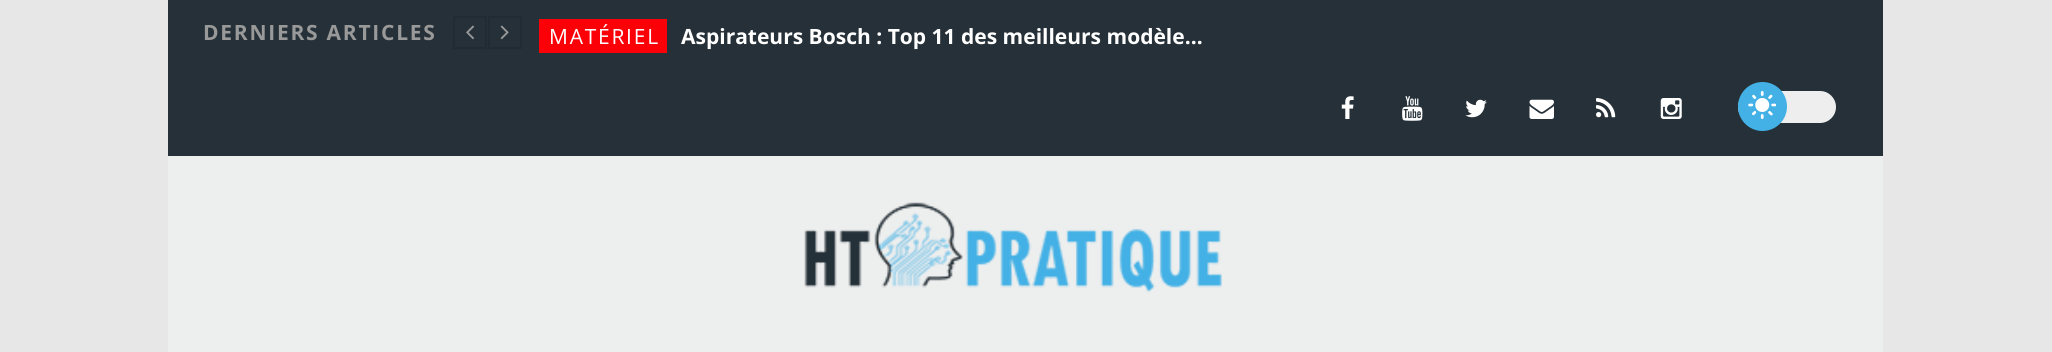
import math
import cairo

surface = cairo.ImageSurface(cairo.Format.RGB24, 2052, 352)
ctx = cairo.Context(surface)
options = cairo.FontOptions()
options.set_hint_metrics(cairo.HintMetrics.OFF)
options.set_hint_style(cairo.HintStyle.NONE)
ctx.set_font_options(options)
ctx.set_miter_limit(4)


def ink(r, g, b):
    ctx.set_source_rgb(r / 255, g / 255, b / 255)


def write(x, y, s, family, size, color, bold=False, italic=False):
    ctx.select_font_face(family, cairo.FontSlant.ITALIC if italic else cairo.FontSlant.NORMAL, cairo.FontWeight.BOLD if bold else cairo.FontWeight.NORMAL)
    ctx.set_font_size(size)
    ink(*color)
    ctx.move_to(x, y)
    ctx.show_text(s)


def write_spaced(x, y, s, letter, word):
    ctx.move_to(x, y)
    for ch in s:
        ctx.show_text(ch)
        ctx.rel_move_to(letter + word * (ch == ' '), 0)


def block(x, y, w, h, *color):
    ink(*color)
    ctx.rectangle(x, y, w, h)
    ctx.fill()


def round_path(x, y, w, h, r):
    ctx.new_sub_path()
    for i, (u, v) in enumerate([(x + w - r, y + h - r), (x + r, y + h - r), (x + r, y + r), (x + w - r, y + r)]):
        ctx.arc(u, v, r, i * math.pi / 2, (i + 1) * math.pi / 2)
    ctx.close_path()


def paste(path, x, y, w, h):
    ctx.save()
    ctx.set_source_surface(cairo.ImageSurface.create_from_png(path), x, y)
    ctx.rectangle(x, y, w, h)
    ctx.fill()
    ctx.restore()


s1 = dict(family="Open Sans", size=21, color=(255, 255, 255), bold=True)

ink(231, 231, 231)
ctx.paint()
block(168, 0, 1715, 156, 37, 48, 56)
ctx.select_font_face("Open Sans", cairo.FontSlant.NORMAL, cairo.FontWeight.BOLD)
ctx.set_font_size(21)
ink(153, 153, 153)
write_spaced(203, 40, "DERNIERS ARTICLES", 1.75, 0)
ctx.rectangle(454, 17, 32, 31)
ink(33, 43, 50)
ctx.stroke()
paste("pic1.png", 466, 25, 8, 15)
ctx.rectangle(489, 17, 32, 31)
ctx.stroke()
paste("pic2.png", 500, 25, 9, 15)
block(539, 19, 128, 34, 252, 0, 8)
ctx.select_font_face("Open Sans")
ink(255, 255, 255)
write_spaced(549, 44, "MATÉRIEL", 1.75, 0)
write(681, 44, "Aspirateurs Bosch : Top 11 des meilleurs modèle…", **s1)
paste("pic3.png", 1341, 96, 13, 23)
paste("pic4.png", 1402, 96, 21, 25)
paste("pic5.png", 1465, 99, 22, 19)
paste("pic6.png", 1529, 99, 25, 20)
paste("pic7.png", 1596, 98, 20, 20)
paste("pic8.png", 1660, 98, 22, 21)
ink(238, 238, 238)
round_path(1738, 91, 98, 32, 16)
ctx.fill()
ink(67, 177, 229)
ctx.arc(1762.5, 106.5, 24.5, 0, 2 * math.pi)
ctx.fill()
paste("pic9.png", 1748, 91, 28, 28)
block(168, 156, 1715, 196, 237, 238, 238)
paste("pic10.png", 804, 202, 418, 91)
surface.write_to_png("screenshot.png")
